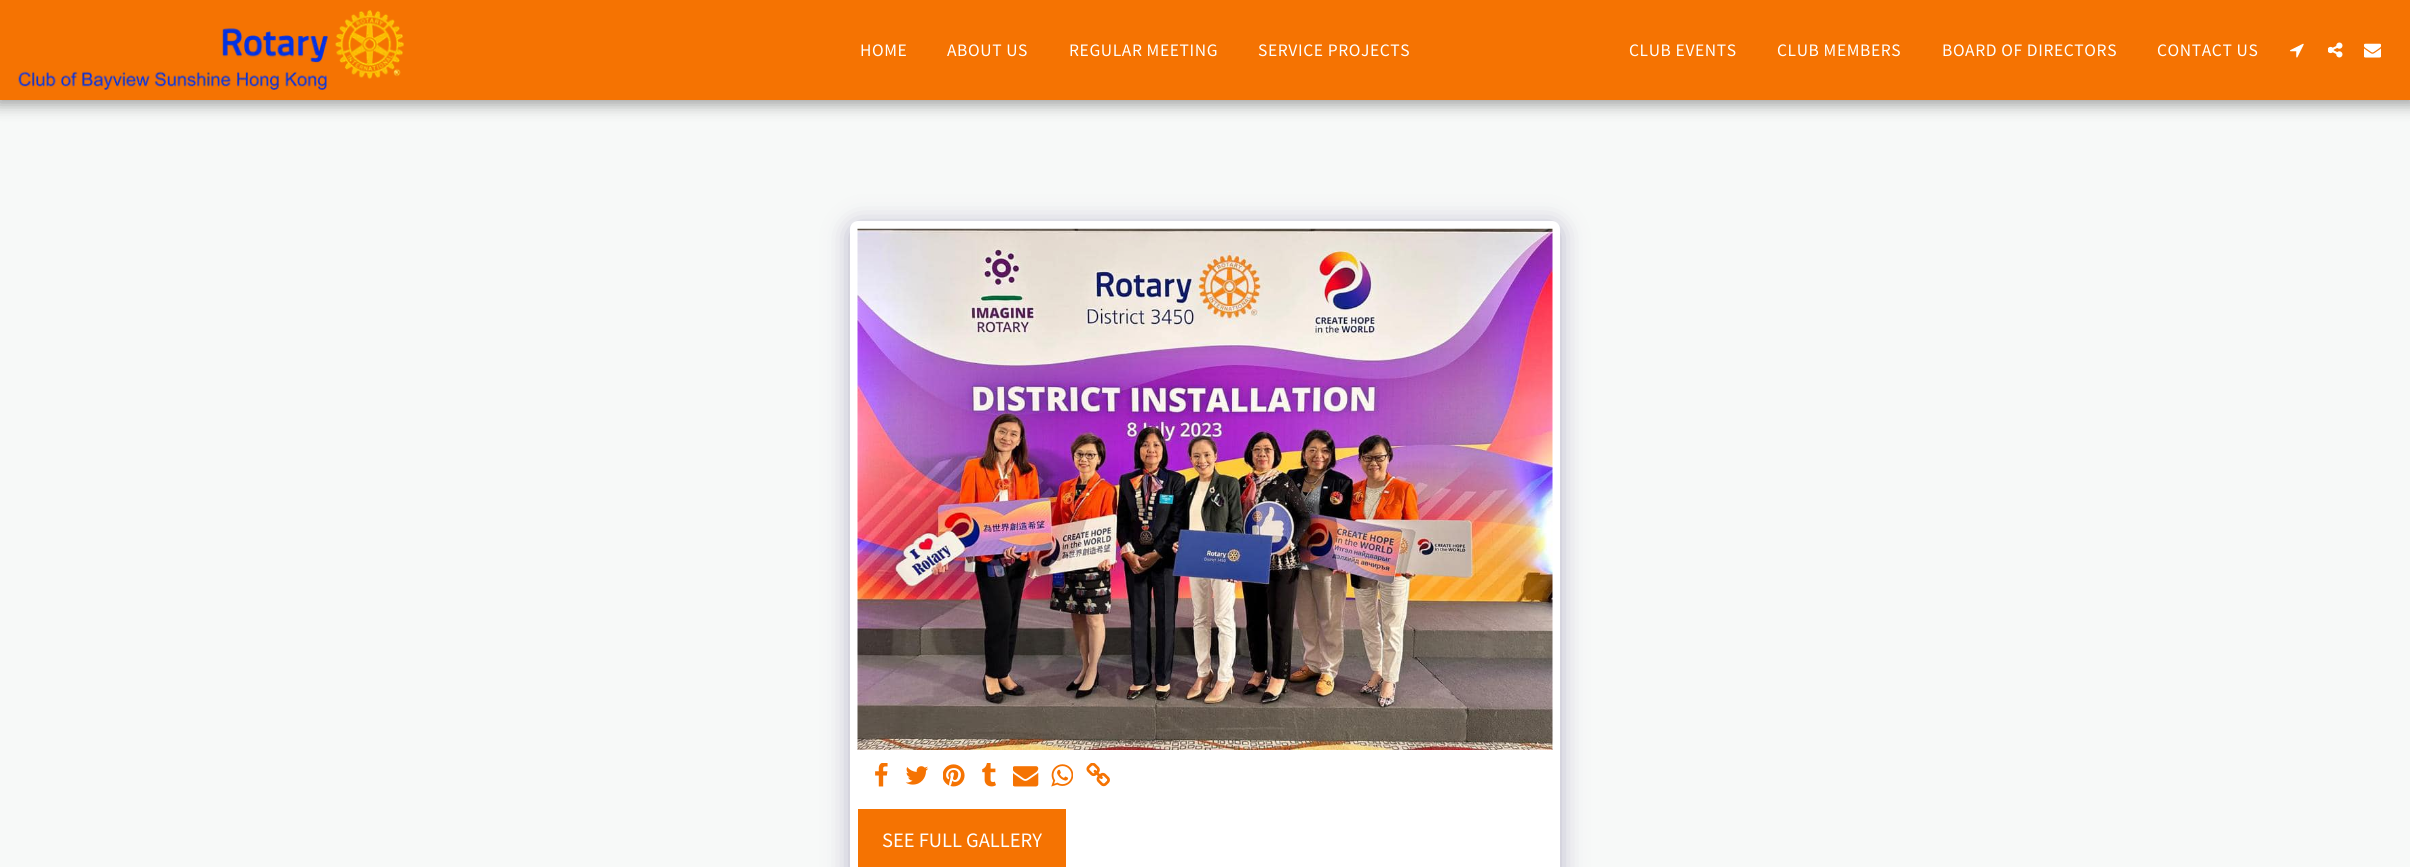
import math
import cairo

surface = cairo.ImageSurface(cairo.Format.RGB24, 2410, 867)
ctx = cairo.Context(surface)
options = cairo.FontOptions()
options.set_hint_metrics(cairo.HintMetrics.OFF)
options.set_hint_style(cairo.HintStyle.NONE)
ctx.set_font_options(options)
ctx.set_miter_limit(4)


def ink(r, g, b):
    ctx.set_source_rgb(r / 255, g / 255, b / 255)


def write(x, y, s, family, size, color, bold=False, italic=False):
    ctx.select_font_face(family, cairo.FontSlant.ITALIC if italic else cairo.FontSlant.NORMAL, cairo.FontWeight.BOLD if bold else cairo.FontWeight.NORMAL)
    ctx.set_font_size(size)
    ink(*color)
    ctx.move_to(x, y)
    ctx.show_text(s)


def write_spaced(x, y, s, letter, word):
    ctx.move_to(x, y)
    for ch in s:
        ctx.show_text(ch)
        ctx.rel_move_to(letter + word * (ch == ' '), 0)


def block(x, y, w, h, *color):
    ink(*color)
    ctx.rectangle(x, y, w, h)
    ctx.fill()


def round_path(x, y, w, h, r):
    ctx.new_sub_path()
    for i, (u, v) in enumerate([(x + w - r, y + h - r), (x + r, y + h - r), (x + r, y + r), (x + w - r, y + r)]):
        ctx.arc(u, v, r, i * math.pi / 2, (i + 1) * math.pi / 2)
    ctx.close_path()


def blur_box(x, y, w, h, r, blur, alpha):
    ctx.push_group_with_content(cairo.Content.ALPHA)
    ctx.set_operator(cairo.Operator.SOURCE)
    for i in range(15, -16, -2):
        e = blur * i / 6
        if min(w, h) + 2 * e > 0:
            ctx.set_source_rgba(0, 0, 0, alpha * math.erfc((i - 1) / 8.5) / 2)
            round_path(x - e, y - e, w + 2 * e, h + 2 * e, max(0, min(r + e + blur * .6, min(w, h) / 2 + e)))
            ctx.fill()
    ctx.mask(ctx.pop_group())


def paste(path, x, y, w, h):
    ctx.save()
    ctx.set_source_surface(cairo.ImageSurface.create_from_png(path), x, y)
    ctx.rectangle(x, y, w, h)
    ctx.fill()
    ctx.restore()


s1 = dict(family="Source Sans Pro", size=20.5, color=(255, 255, 255))

ink(247, 249, 248)
ctx.paint()
ink(0, 0, 0)
blur_box(-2, 0, 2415, 105, 0, 7.5, 0.35)
block(0, 0, 2410, 100, 245, 115, 2)
paste("pic1.png", 18, 10, 386, 80)
ctx.select_font_face("Source Sans Pro")
ctx.set_font_size(17.5)
ink(255, 255, 255)
write_spaced(860, 56, "HOME", 0.6, 0)
write_spaced(947, 56, "ABOUT US", 0.6, 0)
write_spaced(1069, 56, "REGULAR MEETING", 0.6, 0)
write_spaced(1258, 56, "SERVICE PROJECTS", 0.6, 0)
write_spaced(1629, 56, "CLUB EVENTS", 0.6, 0)
write_spaced(1777, 56, "CLUB MEMBERS", 0.6, 0)
write_spaced(1942, 56, "BOARD OF DIRECTORS", 0.6, 0)
write_spaced(2157, 56, "CONTACT US", 0.6, 0)
paste("pic2.png", 2290, 43, 14, 15)
paste("pic3.png", 2328, 42, 15, 16)
paste("pic4.png", 2364, 43, 17, 15)
ink(77, 63, 122)
blur_box(850, 225, 710, 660, 8, 12.5, 0.4)
ink(255, 255, 255)
round_path(850, 221, 710, 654, 8)
ctx.fill()
paste("pic5.png", 857, 228, 696, 522)
paste("pic6.png", 875, 763, 13, 24)
paste("pic7.png", 905, 766, 24, 19)
paste("pic8.png", 943, 764, 22, 23)
paste("pic9.png", 982, 763, 14, 24)
paste("pic10.png", 1013, 766, 26, 21)
paste("pic11.png", 1051, 764, 22, 23)
paste("pic12.png", 1086, 763, 24, 24)
block(858, 809, 208, 58, 245, 115, 2)
write(882, 847, "SEE FULL GALLERY", **s1)
surface.write_to_png("screenshot.png")
